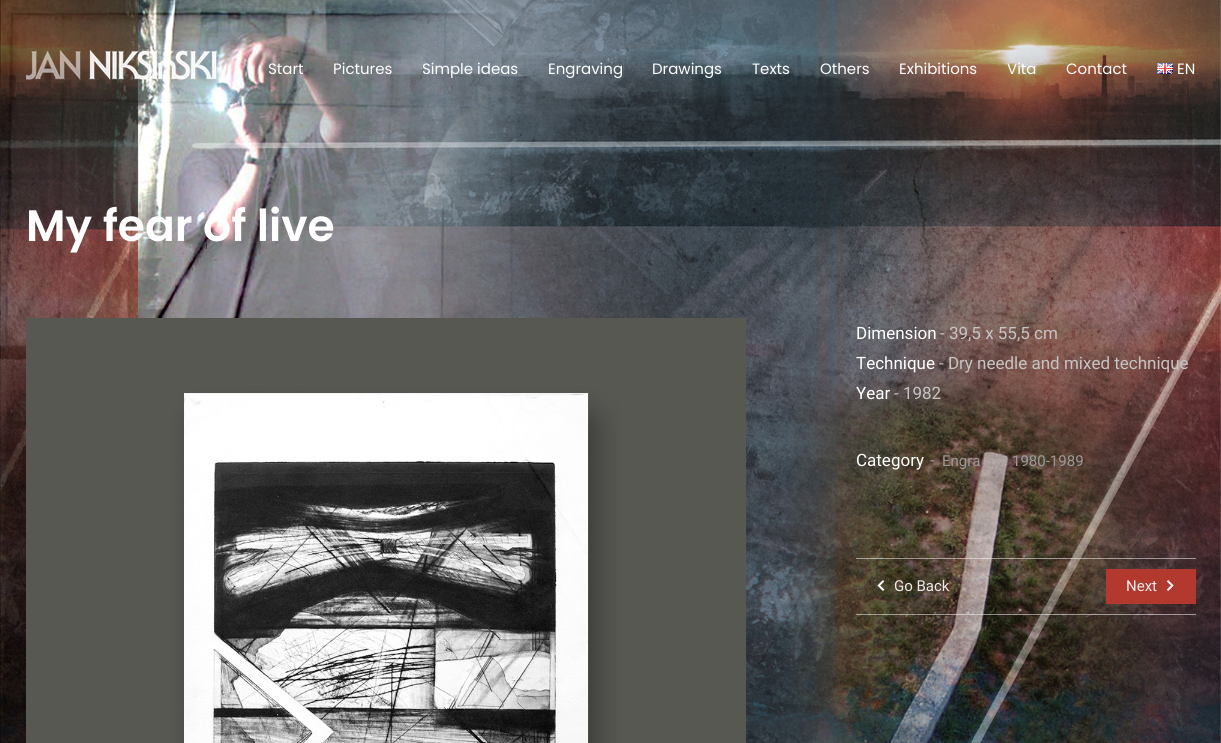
import math
import cairo

surface = cairo.ImageSurface(cairo.Format.RGB24, 1221, 743)
ctx = cairo.Context(surface)
options = cairo.FontOptions()
options.set_hint_metrics(cairo.HintMetrics.OFF)
options.set_hint_style(cairo.HintStyle.NONE)
ctx.set_font_options(options)
ctx.set_miter_limit(4)


def ink(r, g, b):
    ctx.set_source_rgb(r / 255, g / 255, b / 255)


def write(x, y, s, family, size, color, bold=False, italic=False):
    ctx.select_font_face(family, cairo.FontSlant.ITALIC if italic else cairo.FontSlant.NORMAL, cairo.FontWeight.BOLD if bold else cairo.FontWeight.NORMAL)
    ctx.set_font_size(size)
    ink(*color)
    ctx.move_to(x, y)
    ctx.show_text(s)


def block(x, y, w, h, *color):
    ink(*color)
    ctx.rectangle(x, y, w, h)
    ctx.fill()


def paste(path, x, y, w, h):
    ctx.save()
    ctx.set_source_surface(cairo.ImageSurface.create_from_png(path), x, y)
    ctx.rectangle(x, y, w, h)
    ctx.fill()
    ctx.restore()


s1 = dict(family="Poppins", size=15, color=(255, 255, 255))
s2 = dict(family="Poppins SemiBold", size=44, color=(255, 255, 255))
s3 = dict(family="Roboto", size=17, color=(255, 255, 255))
s4 = dict(family="Roboto", size=17, color=(196, 196, 196))
s5 = dict(family="Roboto", size=17, color=(154, 154, 154))
s6 = dict(family="Roboto", size=15, color=(154, 154, 154))
s7 = dict(family="Roboto", size=15, color=(236, 235, 234))
s8 = dict(family="Roboto", size=15, color=(247, 235, 234))

ink(255, 255, 255)
ctx.paint()
paste("pic1.png", 0, 0, 1221, 743)
paste("pic2.png", 26, 50, 191, 30)
write(268, 74, "Start", **s1)
write(333, 74, "Pictures", **s1)
write(422, 74, "Simple ideas", **s1)
write(548, 74, "Engraving", **s1)
write(652, 74, "Drawings", **s1)
write(752, 74, "Texts", **s1)
write(820, 74, "Others", **s1)
write(899, 74, "Exhibitions", **s1)
write(1007, 74, "Vita", **s1)
write(1066, 74, "Contact", **s1)
paste("pic3.png", 1157, 63, 16, 11)
write(1177, 74, "EN", **s1)
write(26, 241, "My fear of live", **s2)
paste("pic4.png", 26, 318, 720, 425)
write(856, 339, "Dimension", **s3)
write(940, 339, "- 39,5 x 55,5 cm", **s4)
write(856, 369, "Technique", **s3)
write(939, 369, "- Dry needle and mixed technique", **s4)
write(856, 399, "Year", **s3)
write(894, 399, "- 1982", **s4)
write(856, 466, "Category", **s3)
write(930, 466, "-", **s5)
write(942, 466, "Engra", **s6)
write(1012, 466, "1980-1989", **s6)
ctx.set_source_rgba(1, 1, 1, 0.5)
ctx.rectangle(856, 558, 340, 1)
ctx.fill()
ctx.rectangle(856, 614, 340, 1)
ctx.fill()
paste("pic5.png", 877, 580, 8, 11)
write(894, 591, "Go Back", **s7)
block(1106, 569, 90, 35, 179, 57, 46)
write(1126, 591, "Next", **s8)
paste("pic6.png", 1166, 580, 8, 11)
surface.write_to_png("screenshot.png")
